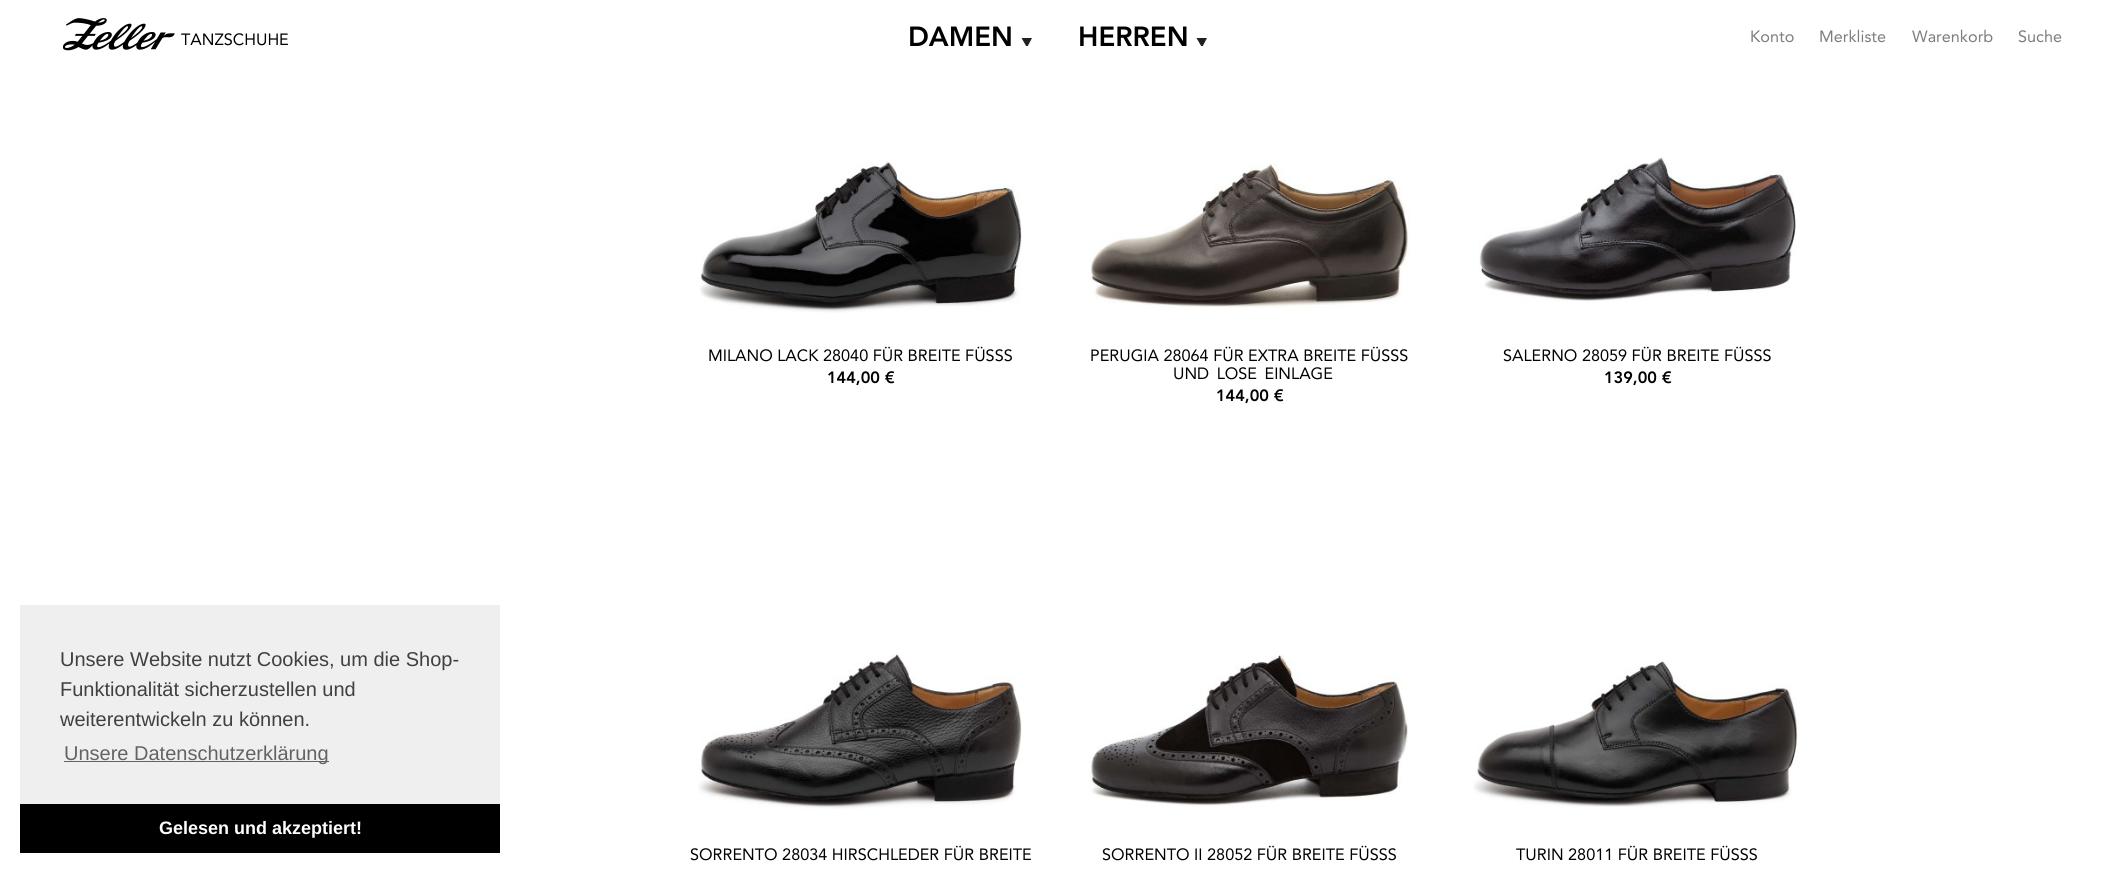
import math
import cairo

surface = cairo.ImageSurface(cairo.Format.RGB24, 2123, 872)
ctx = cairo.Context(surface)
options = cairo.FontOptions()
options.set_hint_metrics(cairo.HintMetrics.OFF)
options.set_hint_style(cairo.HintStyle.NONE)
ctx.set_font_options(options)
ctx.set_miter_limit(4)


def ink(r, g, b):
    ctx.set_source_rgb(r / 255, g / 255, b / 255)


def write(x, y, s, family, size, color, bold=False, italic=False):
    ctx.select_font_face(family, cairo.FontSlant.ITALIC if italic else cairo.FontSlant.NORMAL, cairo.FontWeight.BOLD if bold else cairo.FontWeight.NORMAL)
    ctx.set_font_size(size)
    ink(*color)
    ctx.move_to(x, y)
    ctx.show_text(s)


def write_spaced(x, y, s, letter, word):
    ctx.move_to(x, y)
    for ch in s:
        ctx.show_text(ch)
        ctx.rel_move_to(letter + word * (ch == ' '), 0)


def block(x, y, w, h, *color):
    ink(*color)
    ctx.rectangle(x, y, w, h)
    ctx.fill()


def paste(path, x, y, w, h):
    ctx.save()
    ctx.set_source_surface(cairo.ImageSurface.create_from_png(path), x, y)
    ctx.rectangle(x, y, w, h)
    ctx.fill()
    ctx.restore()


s1 = dict(family="Avenir", size=16.25, color=(0, 0, 0))
s2 = dict(family="Avenir Black", size=27.5, color=(0, 0, 0))
s3 = dict(family="Avenir", size=16.25, color=(125, 125, 125))
s4 = dict(family="Avenir Black", size=16.25, color=(0, 0, 0))
s5 = dict(family="Liberation Sans", size=20, color=(64, 64, 64))
s6 = dict(family="Liberation Sans", size=20, color=(99, 99, 99))
s7 = dict(family="Liberation Sans", size=18, color=(255, 255, 255), bold=True)

ink(255, 255, 255)
ctx.paint()
paste("pic1.png", 63, 18, 112, 33)
write(181, 45, "TANZSCHUHE", **s1)
write(908, 46, "DAMEN", **s2)
ctx.save()
ctx.rectangle(1021, 38, 12, 8)
ctx.clip()
ink(35, 31, 32)
ctx.new_path()
ctx.move_to(1021.5, 38)
ctx.line_to(1027, 47.5)
ctx.line_to(1032, 38)
ctx.close_path()
ctx.fill()
ctx.restore()
write(1078, 46, "HERREN", **s2)
ctx.save()
ctx.rectangle(1196, 38, 12, 8)
ctx.clip()
ink(35, 31, 32)
ctx.new_path()
ctx.move_to(1196.5, 38)
ctx.line_to(1202, 47.5)
ctx.line_to(1207, 38)
ctx.close_path()
ctx.fill()
ctx.restore()
write(1750, 42, "Konto", **s3)
write(1819, 42, "Merkliste", **s3)
write(1912, 42, "Warenkorb", **s3)
write(2018, 42, "Suche", **s3)
paste("pic2.png", 700, 159, 322, 154)
write(708, 361, "MILANO LACK 28040 FÜR BREITE FÜSSS", **s1)
write(827, 383, "144,00 €", **s4)
paste("pic3.png", 1089, 163, 321, 145)
write(1090, 361, "PERUGIA 28064 FÜR EXTRA BREITE FÜSSS", **s1)
write_spaced(1173, 379, "UND LOSE EINLAGE", 0, 3)
write(1216, 401, "144,00 €", **s4)
paste("pic4.png", 1478, 157, 318, 145)
write(1503, 361, "SALERNO 28059 FÜR BREITE FÜSSS", **s1)
write(1604, 383, "139,00 €", **s4)
paste("pic5.png", 698, 654, 324, 155)
write(690, 860, "SORRENTO 28034 HIRSCHLEDER FÜR BREITE", **s1)
paste("pic6.png", 1089, 655, 321, 152)
write(1102, 860, "SORRENTO II 28052 FÜR BREITE FÜSSS", **s1)
paste("pic7.png", 1473, 657, 325, 150)
write(1516, 860, "TURIN 28011 FÜR BREITE FÜSSS", **s1)
block(20, 605, 480, 199, 239, 239, 239)
write(60, 666, "Unsere Website nutzt Cookies, um die Shop-", **s5)
write(60, 696, "Funktionalität sicherzustellen und", **s5)
write(60, 726, "weiterentwickeln zu können.", **s5)
block(64, 761, 265, 1, 99, 99, 99)
write(64, 760, "Unsere Datenschutzerklärung", **s6)
block(20, 804, 480, 49, 0, 0, 0)
write(159, 834, "Gelesen und akzeptiert!", **s7)
surface.write_to_png("screenshot.png")
